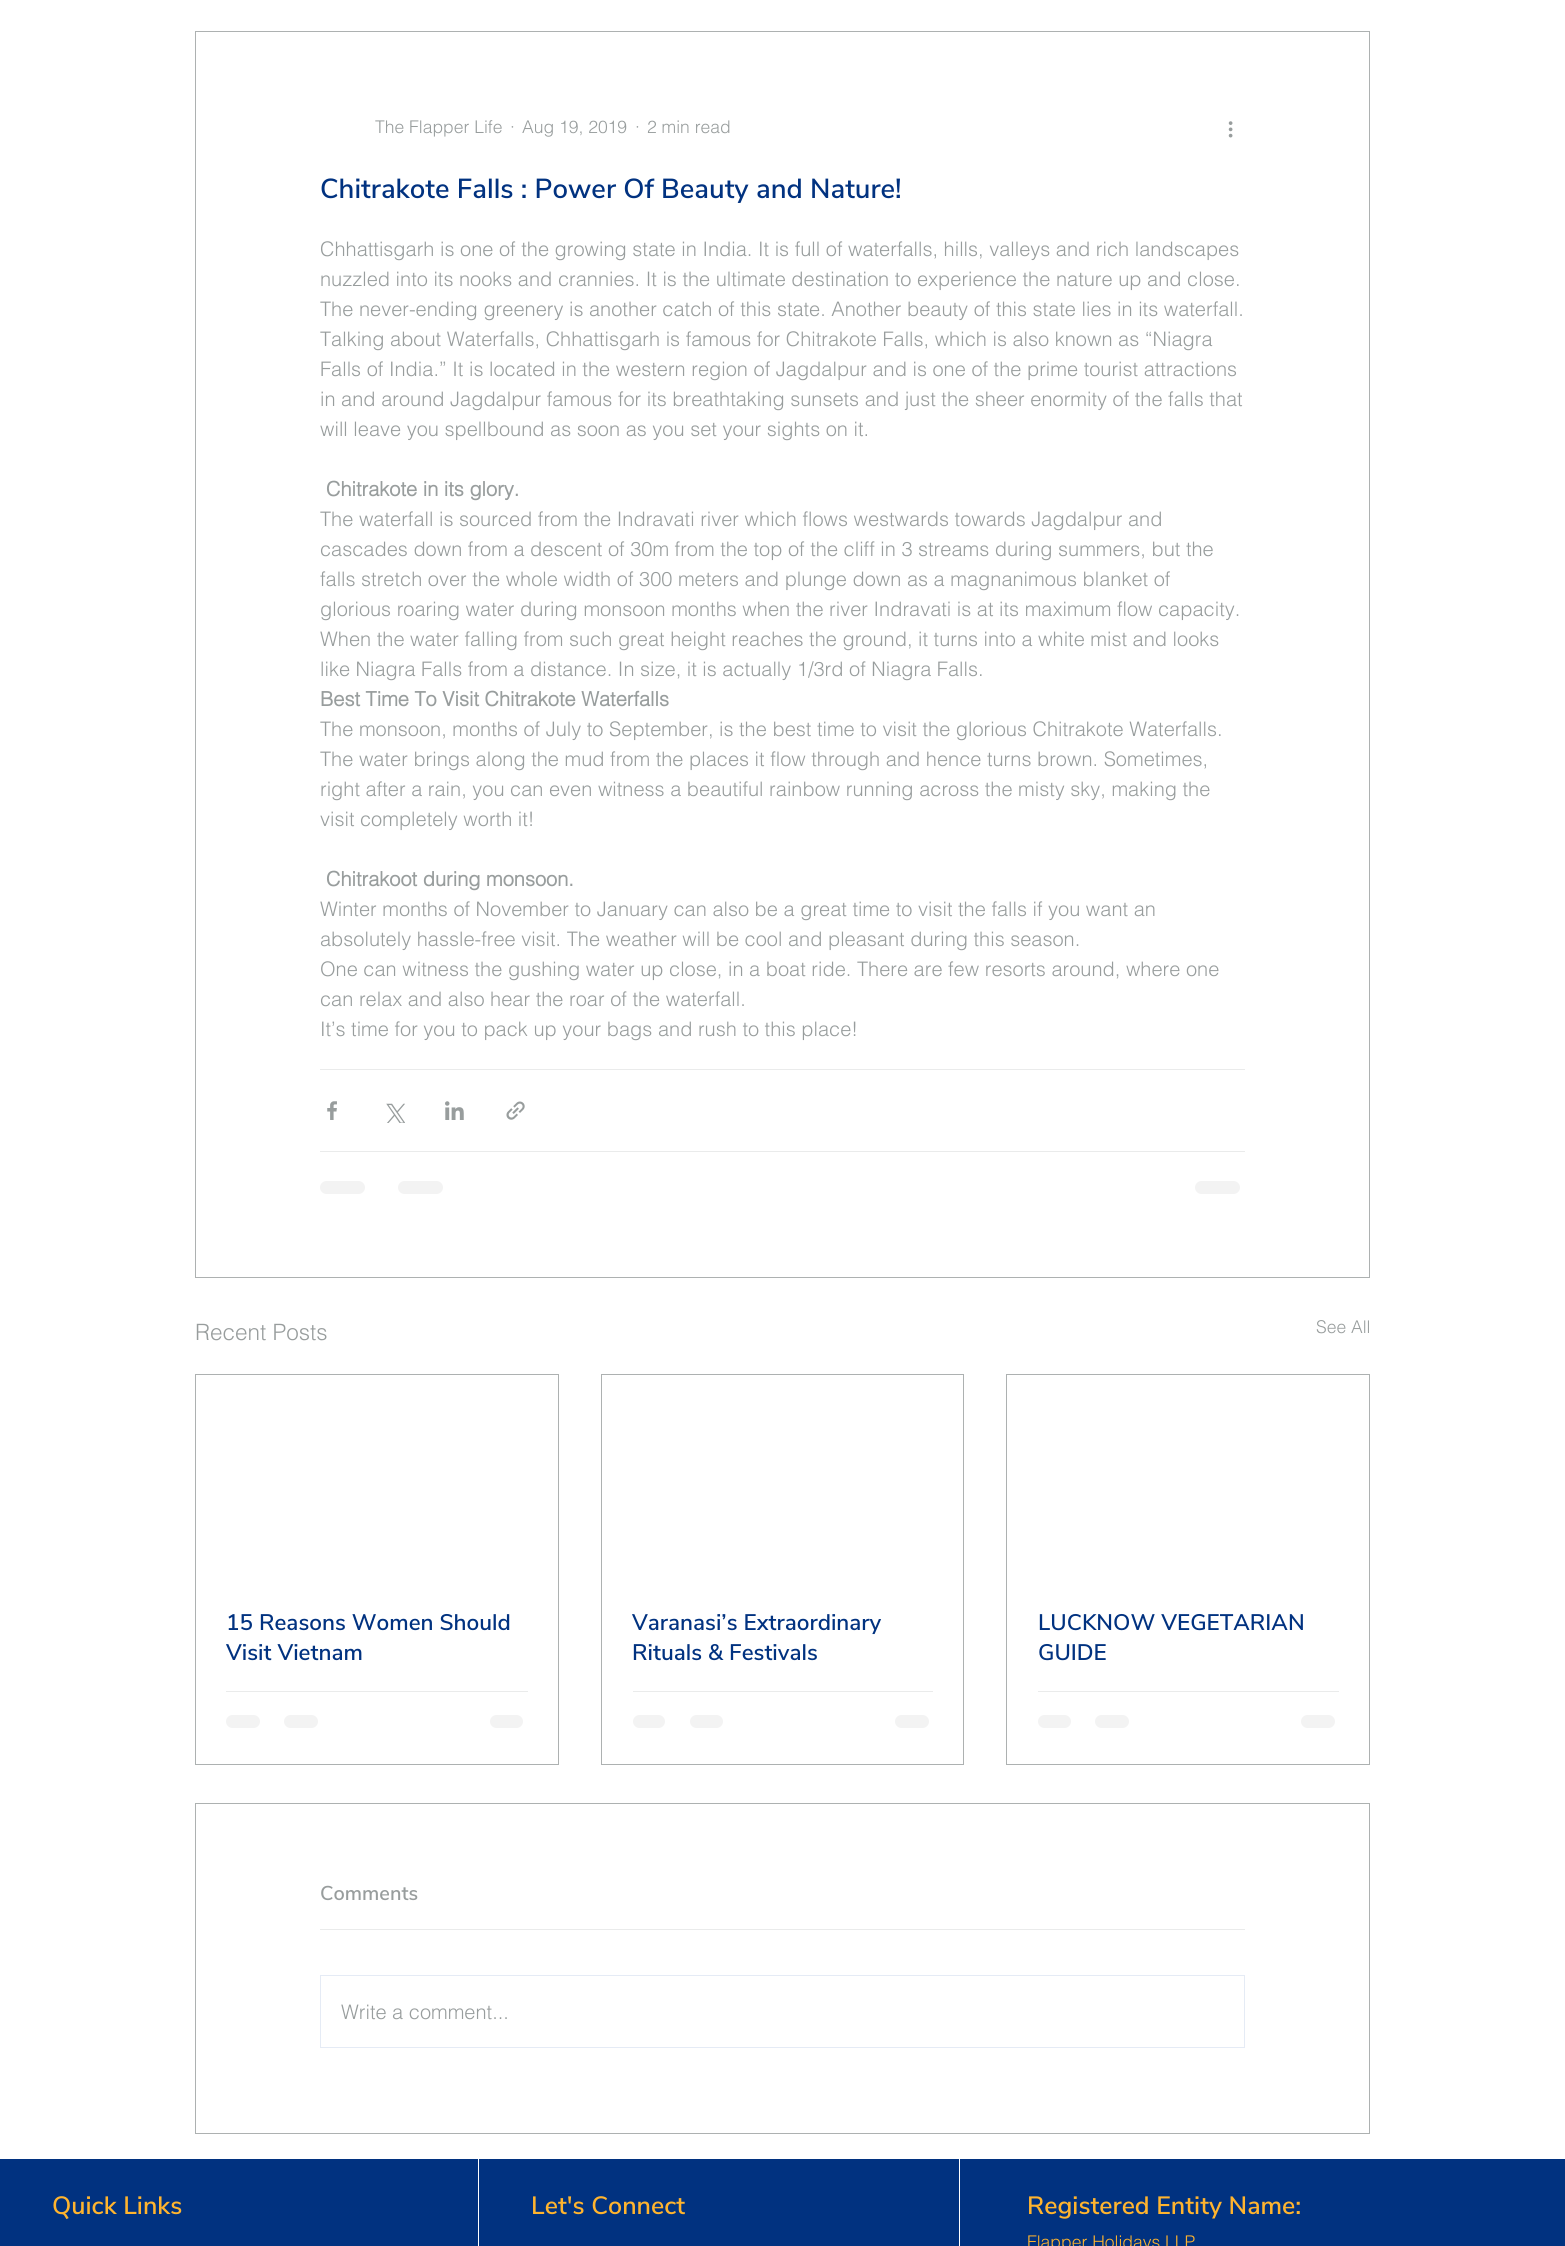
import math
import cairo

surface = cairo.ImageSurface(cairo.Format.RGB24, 1565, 2246)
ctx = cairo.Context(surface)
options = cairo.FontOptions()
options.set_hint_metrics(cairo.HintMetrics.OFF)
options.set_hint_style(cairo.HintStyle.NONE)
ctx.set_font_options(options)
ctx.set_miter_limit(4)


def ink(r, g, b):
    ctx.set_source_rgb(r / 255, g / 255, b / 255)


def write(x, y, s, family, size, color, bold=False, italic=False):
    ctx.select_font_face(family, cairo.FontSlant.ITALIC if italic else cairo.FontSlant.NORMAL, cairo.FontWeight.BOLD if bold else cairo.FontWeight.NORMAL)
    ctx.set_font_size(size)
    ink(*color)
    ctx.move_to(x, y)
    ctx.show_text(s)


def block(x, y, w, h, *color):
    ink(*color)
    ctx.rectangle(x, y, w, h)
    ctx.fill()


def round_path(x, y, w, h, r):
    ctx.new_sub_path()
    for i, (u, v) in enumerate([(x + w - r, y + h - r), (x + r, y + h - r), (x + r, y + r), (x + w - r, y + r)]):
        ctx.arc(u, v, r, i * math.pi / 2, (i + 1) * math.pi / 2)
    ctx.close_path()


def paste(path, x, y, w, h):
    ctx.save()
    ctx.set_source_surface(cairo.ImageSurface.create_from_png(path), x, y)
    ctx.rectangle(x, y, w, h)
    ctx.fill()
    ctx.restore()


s1 = dict(family="helvetica Light", size=17.5, color=(152, 157, 157))
s2 = dict(family="Nunito Sans SemiBold", size=27.5, color=(1, 50, 128))
s3 = dict(family="helvetica Light", size=20, color=(152, 157, 157))
s4 = dict(family="helvetica", size=20, color=(152, 157, 157), bold=True)
s5 = dict(family="helvetica Light", size=22.5, color=(152, 157, 157))
s6 = dict(family="Nunito Sans SemiBold", size=22.5, color=(1, 50, 128))
s7 = dict(family="Nunito Sans SemiBold", size=20, color=(152, 157, 157))
s8 = dict(family="Nunito Sans SemiBold", size=25, color=(255, 180, 46))
s9 = dict(family="helvetica Light", size=17.5, color=(255, 180, 46))

ink(255, 255, 255)
ctx.paint()
ctx.rectangle(195.5, 31.5, 1174, 1246)
ink(173, 177, 177)
ctx.set_line_width(1)
ctx.stroke()
write(375, 133, "The Flapper Life", **s1)
write(510, 133, "·", **s1)
write(522, 133, "Aug 19, 2019", **s1)
write(635, 133, "·", **s1)
write(647, 133, "2 min read", **s1)
paste("pic1.png", 1228, 121, 5, 17)
write(320, 198, "Chitrakote Falls : Power Of Beauty and Nature!", **s2)
write(320, 256, "Chhattisgarh is one of the growing state in India. It is full of waterfalls, hills, valleys and rich landscapes", **s3)
write(320, 286, "nuzzled into its nooks and crannies. It is the ultimate destination to experience the nature up and close.", **s3)
write(320, 316, "The never-ending greenery is another catch of this state. Another beauty of this state lies in its waterfall.", **s3)
write(320, 346, "Talking about Waterfalls, Chhattisgarh is famous for Chitrakote Falls, which is also known as “Niagra", **s3)
write(320, 376, "Falls of India.” It is located in the western region of Jagdalpur and is one of the prime tourist attractions", **s3)
write(320, 406, "in and around Jagdalpur famous for its breathtaking sunsets and just the sheer enormity of the falls that", **s3)
write(320, 436, "will leave you spellbound as soon as you set your sights on it.", **s3)
write(326, 496, "Chitrakote in its glory.", **s4)
write(320, 526, "The waterfall is sourced from the Indravati river which flows westwards towards Jagdalpur and", **s3)
write(320, 556, "cascades down from a descent of 30m from the top of the cliff in 3 streams during summers, but the", **s3)
write(320, 586, "falls stretch over the whole width of 300 meters and plunge down as a magnanimous blanket of", **s3)
write(320, 616, "glorious roaring water during monsoon months when the river Indravati is at its maximum flow capacity.", **s3)
write(320, 646, "When the water falling from such great height reaches the ground, it turns into a white mist and looks", **s3)
write(320, 676, "like Niagra Falls from a distance. In size, it is actually 1/3rd of Niagra Falls.", **s3)
write(320, 706, "Best Time To Visit Chitrakote Waterfalls", **s4)
write(320, 736, "The monsoon, months of July to September, is the best time to visit the glorious Chitrakote Waterfalls.", **s3)
write(320, 766, "The water brings along the mud from the places it flow through and hence turns brown. Sometimes,", **s3)
write(320, 796, "right after a rain, you can even witness a beautiful rainbow running across the misty sky, making the", **s3)
write(320, 826, "visit completely worth it!", **s3)
write(326, 886, "Chitrakoot during monsoon.", **s4)
write(320, 916, "Winter months of November to January can also be a great time to visit the falls if you want an", **s3)
write(320, 946, "absolutely hassle-free visit. The weather will be cool and pleasant during this season.", **s3)
write(320, 976, "One can witness the gushing water up close, in a boat ride. There are few resorts around, where one", **s3)
write(320, 1006, "can relax and also hear the roar of the waterfall.", **s3)
write(320, 1036, "It’s time for you to pack up your bags and rush to this place!", **s3)
block(320, 1069, 925, 1, 234, 235, 235)
paste("pic2.png", 327, 1101, 10, 19)
paste("pic3.png", 386, 1103, 19, 20)
paste("pic4.png", 445, 1101, 19, 19)
paste("pic5.png", 506, 1101, 19, 19)
block(320, 1151, 925, 1, 234, 235, 235)
ink(243, 243, 243)
round_path(320, 1181, 45, 13, 6.5)
ctx.fill()
round_path(398, 1181, 45, 13, 6.5)
ctx.fill()
round_path(1195, 1181, 45, 13, 6.5)
ctx.fill()
write(195, 1340, "Recent Posts", **s5)
write(1316, 1333, "See All", **s1)
ctx.rectangle(195.5, 1374.5, 363, 390)
ink(173, 177, 177)
ctx.stroke()
write(226, 1630, "15 Reasons Women Should", **s6)
write(226, 1660, "Visit Vietnam", **s6)
block(226, 1691, 302, 1, 234, 235, 235)
ink(243, 243, 243)
round_path(226, 1715, 34, 13, 6.5)
ctx.fill()
round_path(284, 1715, 34, 13, 6.5)
ctx.fill()
round_path(490, 1715, 33, 13, 6.5)
ctx.fill()
ctx.rectangle(601.5, 1374.5, 362, 390)
ink(173, 177, 177)
ctx.stroke()
write(632, 1630, "Varanasi’s Extraordinary", **s6)
write(632, 1660, "Rituals & Festivals", **s6)
block(633, 1691, 300, 1, 234, 235, 235)
ink(243, 243, 243)
round_path(633, 1715, 32, 13, 6.5)
ctx.fill()
round_path(690, 1715, 33, 13, 6.5)
ctx.fill()
round_path(895, 1715, 34, 13, 6.5)
ctx.fill()
ctx.rectangle(1006.5, 1374.5, 363, 390)
ink(173, 177, 177)
ctx.stroke()
write(1038, 1630, "LUCKNOW VEGETARIAN", **s6)
write(1038, 1660, "GUIDE", **s6)
block(1038, 1691, 301, 1, 234, 235, 235)
ink(243, 243, 243)
round_path(1038, 1715, 33, 13, 6.5)
ctx.fill()
round_path(1095, 1715, 34, 13, 6.5)
ctx.fill()
round_path(1301, 1715, 34, 13, 6.5)
ctx.fill()
ctx.rectangle(195.5, 1803.5, 1174, 330)
ink(173, 177, 177)
ctx.stroke()
write(320, 1900, "Comments", **s7)
block(320, 1929, 925, 1, 234, 235, 235)
ctx.rectangle(320.5, 1975.5, 924, 72)
ink(229, 235, 245)
ctx.stroke()
write(341, 2019, "Write a comment...", **s3)
block(0, 2159, 478, 87, 1, 50, 128)
write(52, 2214, "Quick Links", **s8)
block(479, 2159, 480, 87, 1, 50, 128)
write(531, 2214, "Let's Connect", **s8)
block(960, 2159, 605, 87, 1, 50, 128)
write(1027, 2214, "Registered Entity Name:", **s8)
write(1027, 2248, "Flapper Holidays LLP", **s9)
surface.write_to_png("screenshot.png")
